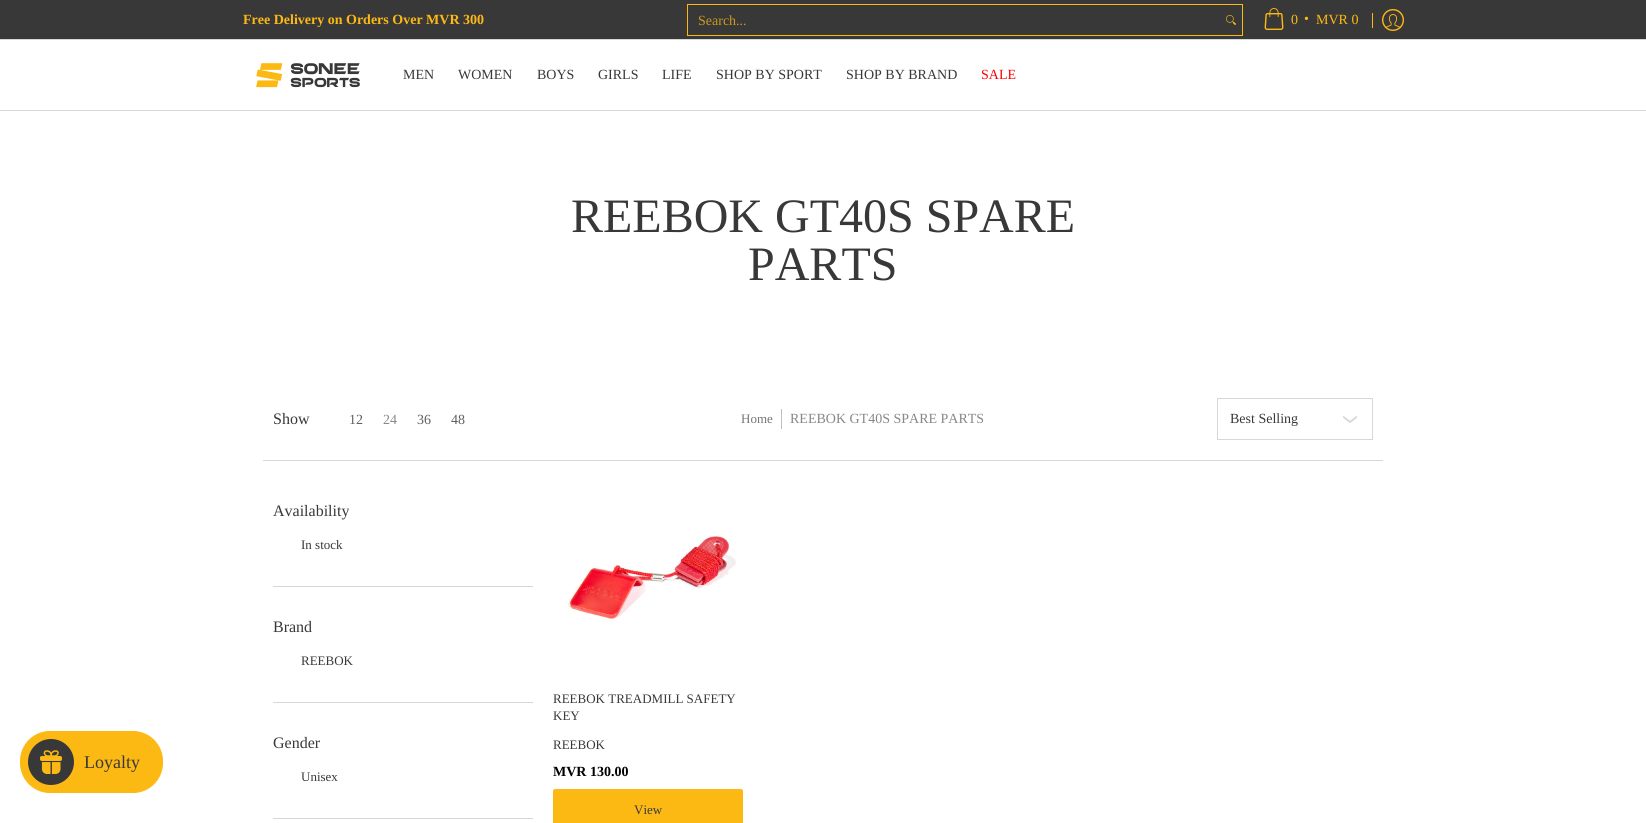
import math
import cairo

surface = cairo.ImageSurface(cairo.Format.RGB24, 1646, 823)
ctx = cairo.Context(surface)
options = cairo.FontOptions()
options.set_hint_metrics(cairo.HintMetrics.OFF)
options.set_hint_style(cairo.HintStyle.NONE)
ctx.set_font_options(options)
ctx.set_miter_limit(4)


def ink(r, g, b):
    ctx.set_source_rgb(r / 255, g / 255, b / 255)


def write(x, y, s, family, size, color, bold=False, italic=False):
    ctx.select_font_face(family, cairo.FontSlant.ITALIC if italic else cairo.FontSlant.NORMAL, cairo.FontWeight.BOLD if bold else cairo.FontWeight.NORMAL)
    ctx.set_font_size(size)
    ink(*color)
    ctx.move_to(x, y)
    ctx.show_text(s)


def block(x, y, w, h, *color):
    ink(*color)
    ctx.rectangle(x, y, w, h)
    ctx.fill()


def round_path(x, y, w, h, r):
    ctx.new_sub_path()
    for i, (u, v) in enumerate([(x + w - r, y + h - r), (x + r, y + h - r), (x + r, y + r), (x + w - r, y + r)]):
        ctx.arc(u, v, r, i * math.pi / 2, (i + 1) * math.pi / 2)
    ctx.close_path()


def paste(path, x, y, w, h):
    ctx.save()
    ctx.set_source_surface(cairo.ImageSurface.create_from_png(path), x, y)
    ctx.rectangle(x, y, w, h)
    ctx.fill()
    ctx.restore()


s1 = dict(family="Liberation Serif", size=14, color=(253, 185, 19), bold=True)
s2 = dict(family="Liberation Serif", size=14, color=(204, 153, 29))
s3 = dict(family="Liberation Serif", size=14, color=(253, 185, 19))
s4 = dict(family="Liberation Serif", size=14, color=(57, 56, 57))
s5 = dict(family="Liberation Serif", size=14, color=(255, 0, 0))
s6 = dict(family="Liberation Serif", size=18, color=(57, 56, 57))
s7 = dict(family="Liberation Serif", size=48, color=(57, 56, 57))
s8 = dict(family="Liberation Serif", size=16, color=(57, 56, 57))
s9 = dict(family="Liberation Serif", size=14, color=(96, 94, 96))
s10 = dict(family="Liberation Serif", size=14, color=(136, 136, 136))
s11 = dict(family="Liberation Serif", size=13, color=(118, 118, 118))
s12 = dict(family="Liberation Serif", size=13, color=(57, 56, 57))
s13 = dict(family="Liberation Serif", size=14, color=(0, 0, 0), bold=True)

ink(255, 255, 255)
ctx.paint()
block(0, 0, 1646, 39, 57, 56, 57)
block(0, 39, 1646, 1, 215, 215, 215)
write(243, 24, "Free Delivery on Orders Over MVR 300", **s1)
ctx.rectangle(687.5, 4.5, 555, 31)
ctx.set_line_width(1)
ctx.stroke()
write(698, 25, "Search...", **s2)
paste("pic1.png", 1226, 15, 10, 10)
paste("pic2.png", 1264, 8, 20, 22)
write(1291, 24, "0", **s3)
write(1304, 23, "•", **s3)
write(1316, 24, "MVR 0", **s3)
block(1372, 13, 1, 15, 253, 185, 19)
paste("pic3.png", 1382, 9, 22, 22)
block(0, 110, 1646, 1, 215, 215, 215)
paste("pic4.png", 256, 63, 104, 25)
write(403, 79, "MEN", **s4)
write(458, 79, "WOMEN", **s4)
write(537, 79, "BOYS", **s4)
write(598, 79, "GIRLS", **s4)
write(662, 79, "LIFE", **s4)
write(716, 79, "SHOP BY SPORT", **s4)
write(846, 79, "SHOP BY BRAND", **s4)
write(981, 79, "SALE", **s5)
ink(253, 185, 19)
round_path(20.5, 731.5, 142, 61, 29.5)
ctx.fill_preserve()
ctx.stroke()
ink(57, 56, 57)
ctx.arc(51, 762, 23, 0, 2 * math.pi)
ctx.fill()
paste("pic5.png", 40, 750, 22, 24)
write(84, 768, "Loyalty", **s6)
write(571, 232, "REEBOK GT40S SPARE", **s7)
write(748, 280, "PARTS", **s7)
block(263, 460, 1120, 1, 215, 215, 215)
write(273, 424, "Show", **s8)
write(349, 424, "12", **s9)
write(383, 424, "24", **s10)
write(417, 424, "36", **s9)
write(451, 424, "48", **s9)
write(741, 423, "Home", **s11)
block(781, 409, 1, 20, 190, 190, 190)
write(790, 423, "REEBOK GT40S SPARE PARTS", **s10)
ctx.rectangle(1217.5, 398.5, 155, 41)
ink(215, 215, 215)
ctx.stroke()
write(1230, 423, "Best Selling", **s4)
ctx.save()
ctx.rectangle(1343, 412, 14, 14)
ctx.clip()
ctx.new_path()
ctx.move_to(1343.5, 417)
ctx.line_to(1350, 422)
ctx.line_to(1356.5, 417)
ink(215, 215, 215)
ctx.set_line_width(1.8)
ctx.set_line_cap(cairo.LineCap.ROUND)
ctx.set_line_join(cairo.LineJoin.ROUND)
ctx.stroke()
ctx.restore()
block(273, 586, 260, 1, 215, 215, 215)
write(273, 516, "Availability", **s8)
write(301, 549, "In stock", **s12)
block(273, 702, 260, 1, 215, 215, 215)
write(273, 632, "Brand", **s8)
write(301, 665, "REEBOK", **s12)
block(273, 818, 260, 1, 215, 215, 215)
write(273, 748, "Gender", **s8)
write(301, 781, "Unisex", **s12)
paste("pic6.png", 568, 536, 168, 83)
write(553, 703, "REEBOK TREADMILL SAFETY", **s12)
write(553, 720, "KEY", **s12)
write(553, 749, "REEBOK", **s12)
write(553, 776, "MVR 130.00", **s13)
ink(253, 185, 19)
round_path(553, 789, 190, 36, 2)
ctx.fill()
write(634, 814, "View", **s12)
surface.write_to_png("screenshot.png")
